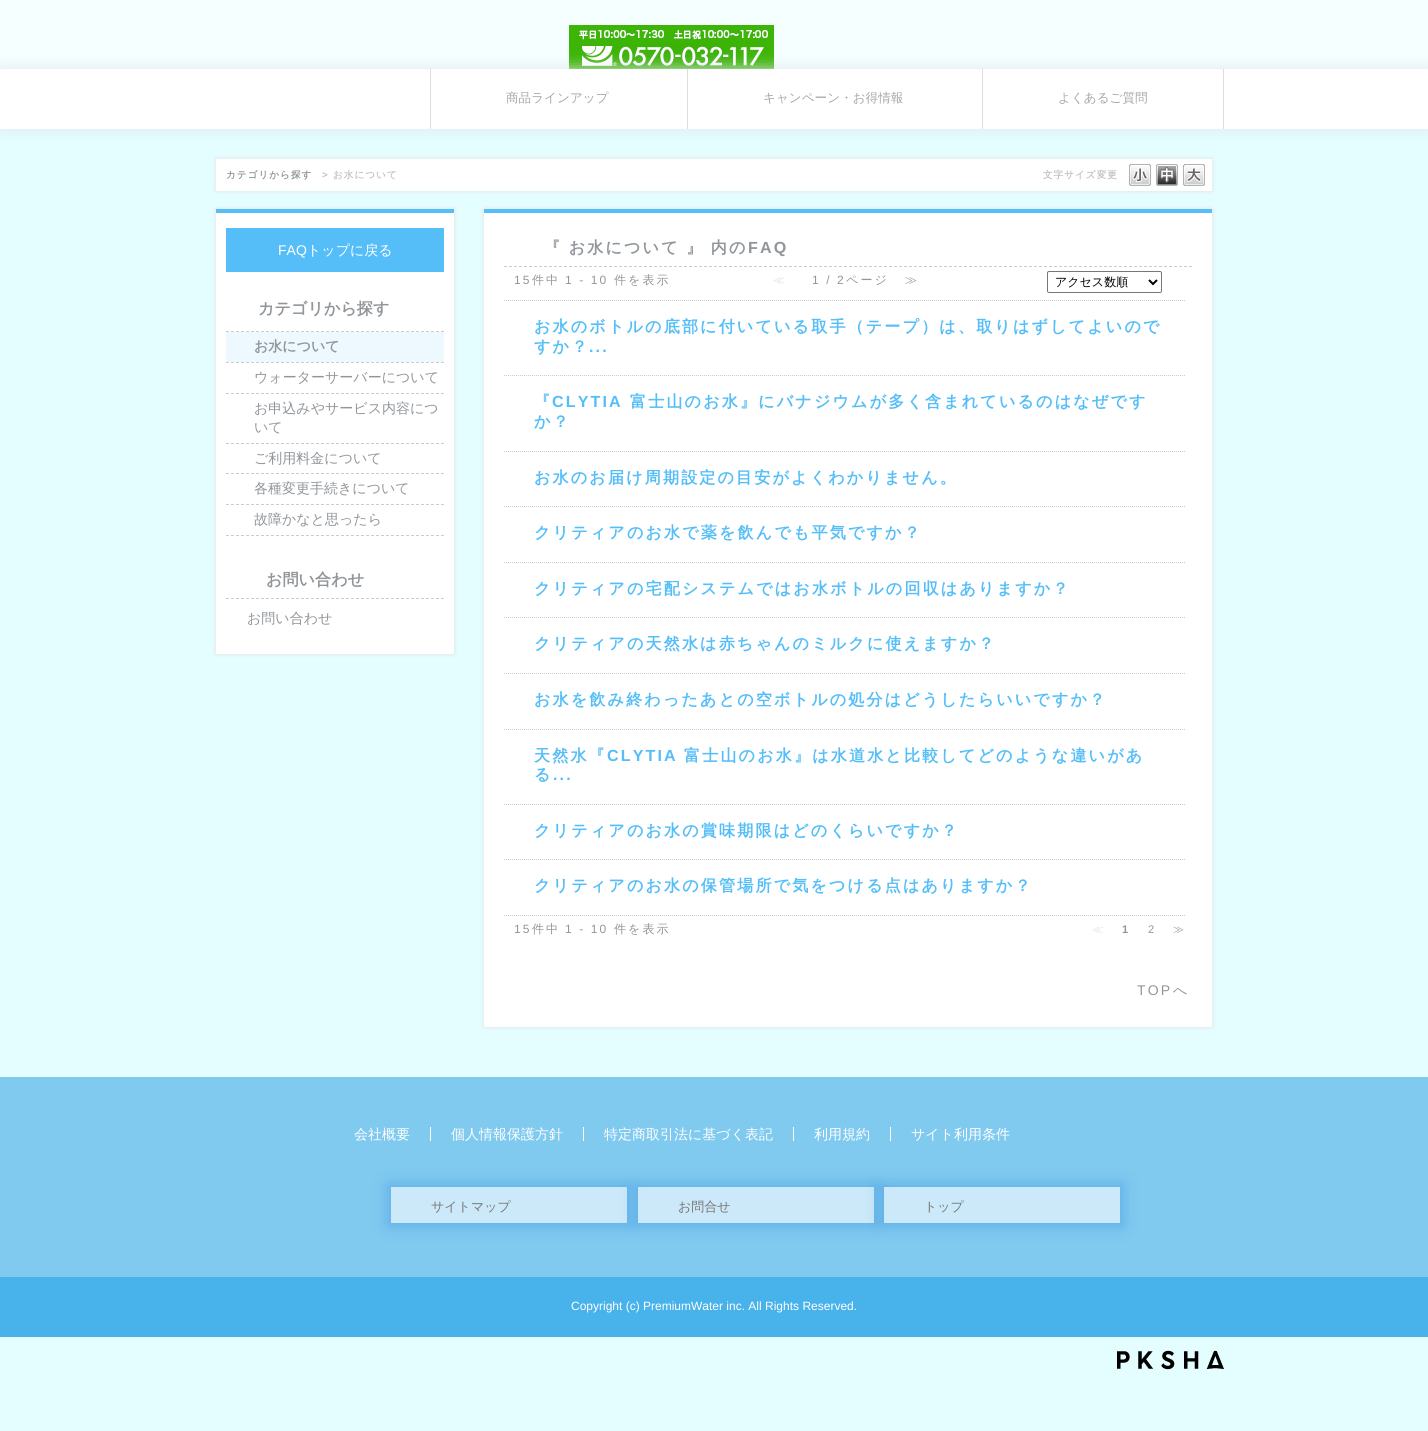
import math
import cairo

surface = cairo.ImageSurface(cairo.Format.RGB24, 1428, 1431)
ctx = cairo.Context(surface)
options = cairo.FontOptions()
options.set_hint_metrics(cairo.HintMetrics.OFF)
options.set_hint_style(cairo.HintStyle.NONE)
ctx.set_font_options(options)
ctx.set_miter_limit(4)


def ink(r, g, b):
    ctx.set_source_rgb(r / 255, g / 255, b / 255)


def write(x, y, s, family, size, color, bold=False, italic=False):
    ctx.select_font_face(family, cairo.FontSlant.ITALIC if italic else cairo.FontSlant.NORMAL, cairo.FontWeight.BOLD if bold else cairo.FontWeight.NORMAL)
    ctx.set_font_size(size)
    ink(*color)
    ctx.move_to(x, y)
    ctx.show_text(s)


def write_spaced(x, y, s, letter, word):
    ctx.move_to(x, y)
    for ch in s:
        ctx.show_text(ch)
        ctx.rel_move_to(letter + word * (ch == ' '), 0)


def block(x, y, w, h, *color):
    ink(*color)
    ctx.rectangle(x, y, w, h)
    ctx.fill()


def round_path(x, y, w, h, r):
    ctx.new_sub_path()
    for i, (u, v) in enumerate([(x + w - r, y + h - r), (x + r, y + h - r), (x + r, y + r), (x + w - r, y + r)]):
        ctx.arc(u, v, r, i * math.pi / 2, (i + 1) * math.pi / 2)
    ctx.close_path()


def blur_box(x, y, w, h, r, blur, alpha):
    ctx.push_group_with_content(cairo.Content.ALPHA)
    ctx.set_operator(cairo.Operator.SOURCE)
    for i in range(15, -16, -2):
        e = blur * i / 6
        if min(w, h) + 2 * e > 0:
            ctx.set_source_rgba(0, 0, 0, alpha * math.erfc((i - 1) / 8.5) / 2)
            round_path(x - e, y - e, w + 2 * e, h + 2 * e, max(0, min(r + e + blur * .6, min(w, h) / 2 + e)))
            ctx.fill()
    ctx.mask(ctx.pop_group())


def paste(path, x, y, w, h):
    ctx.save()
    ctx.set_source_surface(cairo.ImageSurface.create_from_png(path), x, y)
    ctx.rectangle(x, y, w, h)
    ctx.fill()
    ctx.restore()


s1 = dict(family="WenQuanYi Zen Hei Medium", size=12.6, color=(167, 167, 167))
s2 = dict(family="Liberation Sans", size=14, color=(255, 255, 255))
s3 = dict(family="WenQuanYi Zen Hei Medium", size=14, color=(255, 255, 255))
s4 = dict(family="WenQuanYi Zen Hei", size=16.1, color=(145, 150, 154), bold=True)
s5 = dict(family="WenQuanYi Zen Hei", size=14, color=(145, 150, 154), bold=True)
s6 = dict(family="WenQuanYi Zen Hei Medium", size=14, color=(145, 150, 154))
s7 = dict(family="WenQuanYi Zen Hei Medium", size=12, color=(0, 0, 0))
s8 = dict(family="WenQuanYi Zen Hei Medium", size=13, color=(119, 119, 119))
s9 = dict(family="Liberation Sans", size=12, color=(255, 255, 255))

ink(228, 254, 255)
ctx.paint()
block(0, 0, 1428, 69, 246, 255, 255)
paste("pic1.png", 569, 25, 205, 44)
ink(223, 230, 235)
blur_box(0, 69, 1428, 60, 0, 7.5, 1)
block(0, 69, 1428, 60, 255, 255, 255)
block(430, 69, 1, 60, 221, 221, 221)
write(506, 102, "商品ラインアップ", **s1)
block(687, 69, 1, 60, 221, 221, 221)
write(763, 102, "キャンペーン・お得情報", **s1)
block(1223, 69, 1, 60, 221, 221, 221)
block(982, 69, 1, 60, 221, 221, 221)
write(1058, 102, "よくあるご質問", **s1)
ink(224, 224, 224)
blur_box(216, 159, 996, 32, 0, 2.5, 1)
block(216, 159, 996, 32, 255, 255, 255)
ctx.select_font_face("WenQuanYi Zen Hei", cairo.FontSlant.NORMAL, cairo.FontWeight.BOLD)
ctx.set_font_size(9.6)
ink(145, 150, 154)
write_spaced(226, 178, "カテゴリから探す", 1, 0)
ctx.select_font_face("Liberation Sans", cairo.FontSlant.NORMAL, cairo.FontWeight.BOLD)
ink(195, 195, 195)
write_spaced(322, 178, ">", 1, 0)
ctx.select_font_face("WenQuanYi Zen Hei", cairo.FontSlant.NORMAL, cairo.FontWeight.BOLD)
write_spaced(333, 178, "お水について", 1, 0)
write_spaced(1043, 178, "文字サイズ変更", 1, 0)
paste("pic2.png", 1129, 164, 22, 22)
paste("pic3.png", 1156, 164, 22, 22)
paste("pic4.png", 1183, 164, 22, 22)
ink(224, 224, 224)
blur_box(216, 209, 238, 445, 0, 2.5, 1)
block(216, 213, 238, 441, 255, 255, 255)
block(216, 209, 238, 4, 85, 190, 248)
block(226, 228, 218, 44, 85, 190, 248)
write(278, 255, "FAQ", **s2)
write(307, 255, "トップに戻る", **s3)
write(258, 314, "カテゴリから探す", **s4)
ctx.new_path()
ctx.move_to(226, 535.5)
ctx.line_to(444, 535.5)
ink(204, 204, 204)
ctx.set_line_width(1)
ctx.set_dash([3, 2])
ctx.stroke()
ctx.new_path()
ctx.move_to(226, 331.5)
ctx.line_to(444, 331.5)
ctx.stroke()
block(226, 332, 218, 30, 238, 249, 255)
write(254, 351, "お水について", **s5)
ctx.new_path()
ctx.move_to(226, 362.5)
ctx.line_to(444, 362.5)
ink(204, 204, 204)
ctx.stroke()
write(254, 382, "ウォーターサーバーについて", **s6)
ctx.new_path()
ctx.move_to(226, 393.5)
ctx.line_to(444, 393.5)
ink(204, 204, 204)
ctx.stroke()
write(254, 413, "お申込みやサービス内容につ", **s6)
write(254, 432, "いて", **s6)
ctx.new_path()
ctx.move_to(226, 443.5)
ctx.line_to(444, 443.5)
ink(204, 204, 204)
ctx.stroke()
write(254, 463, "ご利用料金について", **s6)
ctx.new_path()
ctx.move_to(226, 473.5)
ctx.line_to(444, 473.5)
ink(204, 204, 204)
ctx.stroke()
write(254, 493, "各種変更手続きについて", **s6)
ctx.new_path()
ctx.move_to(226, 504.5)
ctx.line_to(444, 504.5)
ink(204, 204, 204)
ctx.stroke()
write(254, 524, "故障かなと思ったら", **s6)
ctx.new_path()
ctx.move_to(226, 598.5)
ctx.line_to(444, 598.5)
ink(204, 204, 204)
ctx.stroke()
write(266, 585, "お問い合わせ", **s4)
write(247, 623, "お問い合わせ", **s6)
ink(224, 224, 224)
blur_box(484, 209, 728, 818, 0, 2.5, 1)
block(484, 213, 728, 814, 255, 255, 255)
block(484, 209, 728, 4, 85, 190, 248)
ctx.new_path()
ctx.move_to(504, 266.5)
ctx.line_to(1192, 266.5)
ink(204, 204, 204)
ctx.stroke()
ctx.select_font_face("WenQuanYi Zen Hei", cairo.FontSlant.NORMAL, cairo.FontWeight.BOLD)
ctx.set_font_size(16.1)
ink(145, 150, 154)
write_spaced(544, 253, "『 お水について 』 内の", 2.1, -0.5)
ctx.select_font_face("Liberation Sans", cairo.FontSlant.NORMAL, cairo.FontWeight.BOLD)
write_spaced(748, 253, "FAQ", 2.1, 0)
ctx.select_font_face("Liberation Sans")
ctx.set_font_size(12)
write_spaced(514, 284, "15", 2.1, 0)
ctx.select_font_face("WenQuanYi Zen Hei Medium")
write_spaced(532, 284, "件中", 2.1, 0)
ctx.select_font_face("Liberation Sans")
write_spaced(565, 284, "1 - 10", 2.1, 0)
ctx.select_font_face("WenQuanYi Zen Hei Medium")
write_spaced(614, 284, "件を表示", 2.1, 0)
ink(221, 221, 221)
write_spaced(773, 284, "≪", 2.1, 0)
ctx.select_font_face("Liberation Sans")
ink(145, 150, 154)
write_spaced(812, 284, "1 / 2", 2.1, 0)
ctx.select_font_face("WenQuanYi Zen Hei Medium")
write_spaced(846, 284, "ページ", 2.1, 0)
write_spaced(905, 284, "≫", 2.1, 0)
round_path(1047.5, 271.5, 114, 21, 1.5)
ink(118, 118, 118)
ctx.set_dash([])
ctx.stroke()
ctx.new_path()
ctx.move_to(1149, 280)
ctx.line_to(1153, 284)
ctx.line_to(1157, 280)
ink(0, 0, 0)
ctx.set_line_width(2)
ctx.stroke()
write(1055, 286, "アクセス数順", **s7)
ctx.new_path()
ctx.move_to(504, 300.5)
ctx.line_to(1185, 300.5)
ink(204, 204, 204)
ctx.set_line_width(1)
ctx.set_dash([1, 1])
ctx.stroke()
ctx.new_path()
ctx.move_to(504, 375.5)
ctx.line_to(1185, 375.5)
ctx.stroke()
ctx.select_font_face("WenQuanYi Zen Hei", cairo.FontSlant.NORMAL, cairo.FontWeight.BOLD)
ctx.set_font_size(16.1)
ink(85, 190, 248)
write_spaced(534, 332, "お水のボトルの底部に付いている取手（テープ）は、取りはずしてよいので", 2.1, 0)
write_spaced(534, 352, "すか？", 2.1, 0)
ctx.select_font_face("Liberation Sans", cairo.FontSlant.NORMAL, cairo.FontWeight.BOLD)
write_spaced(589, 352, "...", 2.1, 0)
ctx.new_path()
ctx.move_to(504, 451.5)
ctx.line_to(1185, 451.5)
ink(204, 204, 204)
ctx.stroke()
ctx.select_font_face("WenQuanYi Zen Hei", cairo.FontSlant.NORMAL, cairo.FontWeight.BOLD)
ink(85, 190, 248)
write_spaced(534, 407, "『", 2.1, 0)
ctx.select_font_face("Liberation Sans", cairo.FontSlant.NORMAL, cairo.FontWeight.BOLD)
write_spaced(552, 407, "CLYTIA", 2.1, 0)
ctx.select_font_face("WenQuanYi Zen Hei", cairo.FontSlant.NORMAL, cairo.FontWeight.BOLD)
write_spaced(630, 407, "富士山のお水』にバナジウムが多く含まれているのはなぜです", 2.1, 0)
write_spaced(534, 427, "か？", 2.1, 0)
ctx.new_path()
ctx.move_to(504, 506.5)
ctx.line_to(1185, 506.5)
ink(204, 204, 204)
ctx.stroke()
ink(85, 190, 248)
write_spaced(534, 483, "お水のお届け周期設定の目安がよくわかりません。", 2.1, 0)
ctx.new_path()
ctx.move_to(504, 562.5)
ctx.line_to(1185, 562.5)
ink(204, 204, 204)
ctx.stroke()
ink(85, 190, 248)
write_spaced(534, 538, "クリティアのお水で薬を飲んでも平気ですか？", 2.1, 0)
ctx.new_path()
ctx.move_to(504, 617.5)
ctx.line_to(1185, 617.5)
ink(204, 204, 204)
ctx.stroke()
ink(85, 190, 248)
write_spaced(534, 594, "クリティアの宅配システムではお水ボトルの回収はありますか？", 2.1, 0)
ctx.new_path()
ctx.move_to(504, 673.5)
ctx.line_to(1185, 673.5)
ink(204, 204, 204)
ctx.stroke()
ink(85, 190, 248)
write_spaced(534, 649, "クリティアの天然水は赤ちゃんのミルクに使えますか？", 2.1, 0)
ctx.new_path()
ctx.move_to(504, 729.5)
ctx.line_to(1185, 729.5)
ink(204, 204, 204)
ctx.stroke()
ink(85, 190, 248)
write_spaced(534, 705, "お水を飲み終わったあとの空ボトルの処分はどうしたらいいですか？", 2.1, 0)
ctx.new_path()
ctx.move_to(504, 804.5)
ctx.line_to(1185, 804.5)
ink(204, 204, 204)
ctx.stroke()
ink(85, 190, 248)
write_spaced(534, 761, "天然水『", 2.1, 0)
ctx.select_font_face("Liberation Sans", cairo.FontSlant.NORMAL, cairo.FontWeight.BOLD)
write_spaced(607, 761, "CLYTIA", 2.1, 0)
ctx.select_font_face("WenQuanYi Zen Hei", cairo.FontSlant.NORMAL, cairo.FontWeight.BOLD)
write_spaced(684, 761, "富士山のお水』は水道水と比較してどのような違いがあ", 2.1, 0)
write_spaced(534, 780, "る", 2.1, 0)
ctx.select_font_face("Liberation Sans", cairo.FontSlant.NORMAL, cairo.FontWeight.BOLD)
write_spaced(553, 780, "...", 2.1, 0)
ctx.new_path()
ctx.move_to(504, 859.5)
ctx.line_to(1185, 859.5)
ink(204, 204, 204)
ctx.stroke()
ctx.select_font_face("WenQuanYi Zen Hei", cairo.FontSlant.NORMAL, cairo.FontWeight.BOLD)
ink(85, 190, 248)
write_spaced(534, 836, "クリティアのお水の賞味期限はどのくらいですか？", 2.1, 0)
ctx.new_path()
ctx.move_to(504, 915.5)
ctx.line_to(1185, 915.5)
ink(204, 204, 204)
ctx.stroke()
ink(85, 190, 248)
write_spaced(534, 891, "クリティアのお水の保管場所で気をつける点はありますか？", 2.1, 0)
ctx.select_font_face("Liberation Sans")
ctx.set_font_size(12)
ink(145, 150, 154)
write_spaced(514, 933, "15", 2.1, 0)
ctx.select_font_face("WenQuanYi Zen Hei Medium")
write_spaced(532, 933, "件中", 2.1, 0)
ctx.select_font_face("Liberation Sans")
write_spaced(565, 933, "1 - 10", 2.1, 0)
ctx.select_font_face("WenQuanYi Zen Hei Medium")
write_spaced(614, 933, "件を表示", 2.1, 0)
ctx.set_font_size(11)
ink(221, 221, 221)
write_spaced(1092, 933, "≪", 2.1, 0)
ctx.select_font_face("Liberation Sans", cairo.FontSlant.NORMAL, cairo.FontWeight.BOLD)
ink(145, 150, 154)
write_spaced(1122, 933, "1", 2.1, 0)
ctx.select_font_face("Liberation Sans")
write_spaced(1148, 933, "2", 2.1, 0)
ctx.select_font_face("WenQuanYi Zen Hei Medium")
write_spaced(1173, 933, "≫", 2.1, 0)
ctx.select_font_face("Liberation Sans")
ctx.set_font_size(14)
write_spaced(1137, 995, "TOP", 2.1, 0)
ctx.select_font_face("WenQuanYi Zen Hei Medium")
write_spaced(1173, 995, "へ", 2.1, 0)
block(0, 1077, 1428, 200, 128, 201, 239)
block(430, 1127, 1, 14, 255, 255, 255)
write(354, 1139, "会社概要", **s3)
block(583, 1127, 1, 14, 255, 255, 255)
write(451, 1139, "個人情報保護方針", **s3)
block(793, 1127, 1, 14, 255, 255, 255)
write(604, 1139, "特定商取引法に基づく表記", **s3)
block(890, 1127, 1, 14, 255, 255, 255)
write(814, 1139, "利用規約", **s3)
write(911, 1139, "サイト利用条件", **s3)
ink(62, 149, 224)
blur_box(388, 1184, 242, 42, 0, 7, 0.49)
block(391, 1187, 236, 36, 204, 233, 249)
write(431, 1211, "サイトマップ", **s8)
ctx.save()
ctx.set_fill_rule(cairo.FillRule.EVEN_ODD)
ctx.new_path()
ctx.move_to(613, 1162)
ctx.line_to(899, 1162)
ctx.line_to(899, 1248)
ctx.line_to(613, 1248)
ctx.close_path()
ctx.move_to(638, 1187)
ctx.line_to(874, 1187)
ctx.line_to(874, 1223)
ctx.line_to(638, 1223)
ctx.close_path()
ctx.clip()
ink(62, 149, 224)
blur_box(635, 1184, 242, 42, 0, 7, 0.49)
ctx.restore()
ctx.set_source_rgba(1, 1, 1, 0.6)
ctx.rectangle(638, 1187, 236, 36)
ctx.fill()
write(678, 1211, "お問合せ", **s8)
ctx.save()
ctx.set_fill_rule(cairo.FillRule.EVEN_ODD)
ctx.new_path()
ctx.move_to(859, 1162)
ctx.line_to(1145, 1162)
ctx.line_to(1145, 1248)
ctx.line_to(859, 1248)
ctx.close_path()
ctx.move_to(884, 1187)
ctx.line_to(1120, 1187)
ctx.line_to(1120, 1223)
ctx.line_to(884, 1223)
ctx.close_path()
ctx.clip()
ink(62, 149, 224)
blur_box(881, 1184, 242, 42, 0, 7, 0.49)
ctx.restore()
ctx.set_source_rgba(1, 1, 1, 0.6)
ctx.rectangle(884, 1187, 236, 36)
ctx.fill()
write(924, 1211, "トップ", **s8)
block(0, 1277, 1428, 60, 72, 178, 234)
write(571, 1310, "Copyright (c) PremiumWater inc. All Rights Reserved.", **s9)
paste("pic5.png", 1117, 1350, 107, 20)
surface.write_to_png("screenshot.png")
